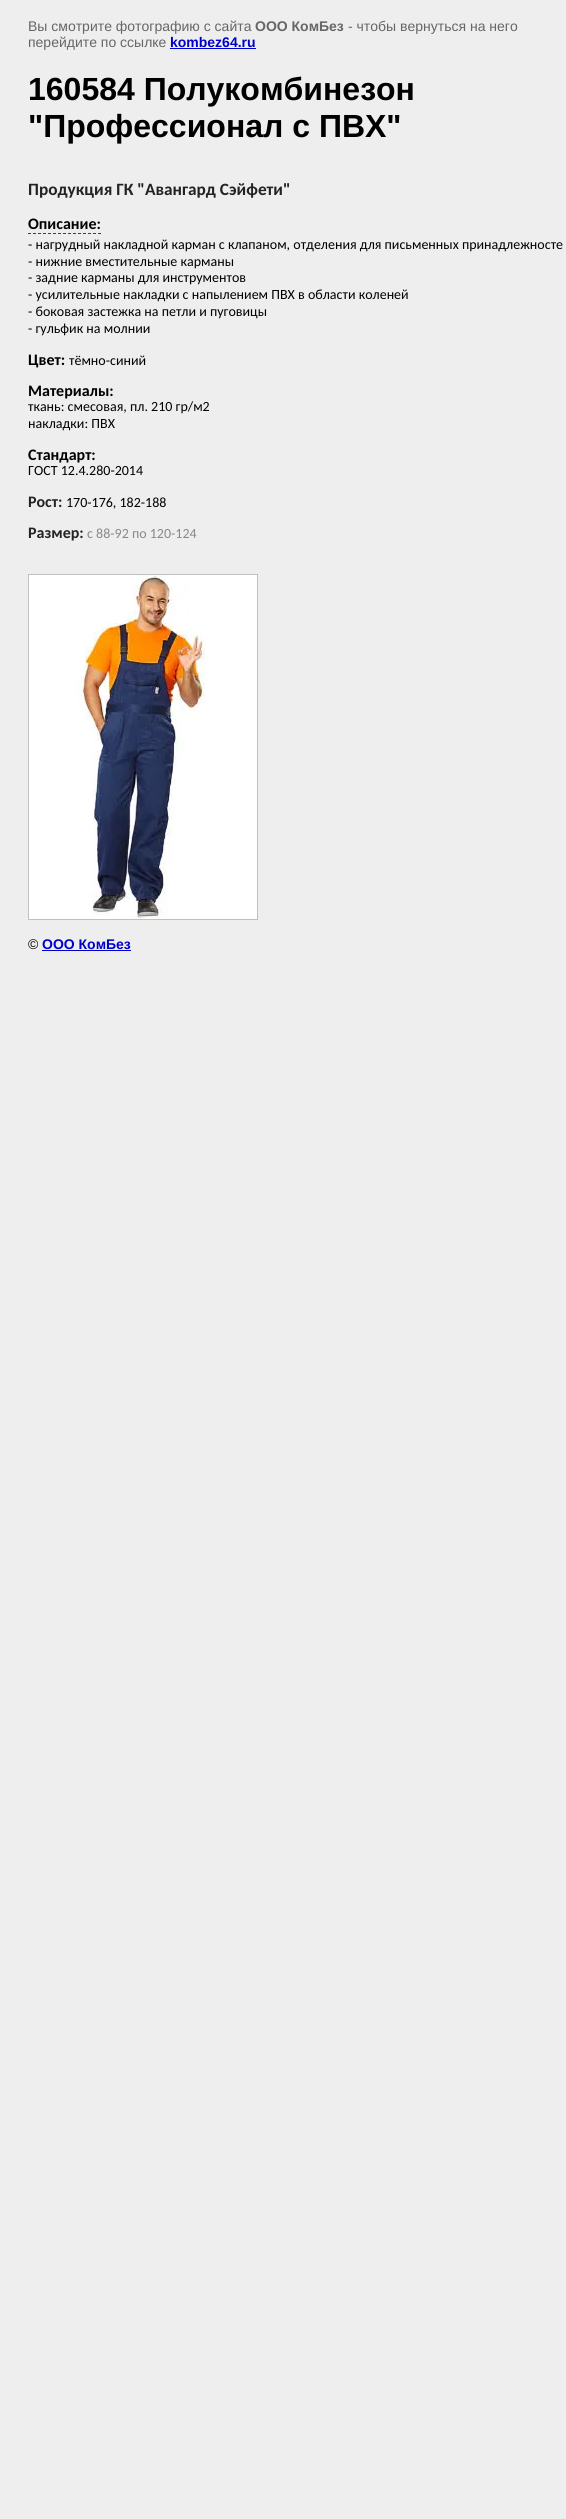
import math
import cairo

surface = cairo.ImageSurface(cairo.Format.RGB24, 566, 2519)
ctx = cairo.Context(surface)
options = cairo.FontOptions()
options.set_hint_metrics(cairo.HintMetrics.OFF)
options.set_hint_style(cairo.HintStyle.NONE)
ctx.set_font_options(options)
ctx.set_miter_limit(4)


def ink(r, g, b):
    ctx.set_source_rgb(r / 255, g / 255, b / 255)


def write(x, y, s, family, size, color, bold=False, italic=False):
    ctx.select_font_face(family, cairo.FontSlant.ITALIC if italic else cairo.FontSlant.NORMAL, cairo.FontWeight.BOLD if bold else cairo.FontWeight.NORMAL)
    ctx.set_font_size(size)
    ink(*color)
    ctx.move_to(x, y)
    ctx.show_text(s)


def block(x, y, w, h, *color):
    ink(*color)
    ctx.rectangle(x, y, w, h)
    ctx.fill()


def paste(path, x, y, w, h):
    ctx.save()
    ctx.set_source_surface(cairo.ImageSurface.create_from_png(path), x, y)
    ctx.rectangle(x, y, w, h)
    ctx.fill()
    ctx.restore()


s1 = dict(family="Liberation Sans", size=14, color=(102, 102, 102))
s2 = dict(family="Liberation Sans", size=14, color=(102, 102, 102), bold=True)
s3 = dict(family="Liberation Sans", size=14, color=(0, 0, 204), bold=True)
s4 = dict(family="Liberation Sans", size=32, color=(0, 0, 0), bold=True)
s5 = dict(family="Carlito", size=17.3, color=(35, 35, 35), bold=True)
s6 = dict(family="Carlito", size=16, color=(0, 0, 0), bold=True)
s7 = dict(family="Carlito", size=14, color=(0, 0, 0))
s8 = dict(family="Carlito", size=16, color=(35, 35, 35), bold=True)
s9 = dict(family="Carlito", size=14, color=(136, 136, 136))
s10 = dict(family="Liberation Sans", size=14, color=(0, 0, 0))

ink(238, 238, 238)
ctx.paint()
write(28, 31, "Вы смотрите фотографию с сайта", **s1)
write(255, 31, "ООО КомБез", **s2)
write(348, 31, "- чтобы вернуться на него", **s1)
write(28, 47, "перейдите по ссылке", **s1)
write(170, 47, "kombez64.ru", **s3)
block(170, 48, 86, 1, 0, 0, 204)
write(28, 100, "160584 Полукомбинезон", **s4)
write(28, 137, "\"Профессионал с ПВХ\"", **s4)
write(28, 195, "Продукция ГК \"Авангард Сэйфети\"", **s5)
write(28, 229, "Описание:", **s6)
ctx.new_path()
ctx.move_to(28, 233.5)
ctx.line_to(101, 233.5)
ink(44, 62, 111)
ctx.set_line_width(1)
ctx.set_dash([3, 2])
ctx.stroke()
write(28, 249, "- нагрудный накладной карман с клапаном, отделения для письменных принадлежносте", **s7)
write(28, 266, "- нижние вместительные карманы", **s7)
write(28, 282, "- задние карманы для инструментов", **s7)
write(28, 299, "- усилительные накладки с напылением ПВХ в области коленей", **s7)
write(28, 316, "- боковая застежка на петли и пуговицы", **s7)
write(28, 333, "- гульфик на молнии", **s7)
write(28, 365, "Цвет:", **s6)
write(69, 365, "тёмно-синий", **s7)
write(28, 396, "Материалы:", **s6)
write(28, 411, "ткань: смесовая, пл. 210 гр/м2", **s7)
write(28, 428, "накладки: ПВХ", **s7)
write(28, 460, "Стандарт:", **s6)
write(28, 475, "ГОСТ 12.4.280-2014", **s7)
write(28, 507, "Рост:", **s8)
write(66, 507, "170-176, 182-188", **s7)
write(28, 538, "Размер:", **s8)
write(87, 538, "с 88-92 по 120-124", **s9)
ctx.rectangle(28.5, 574.5, 229, 345)
ink(192, 192, 192)
ctx.set_dash([])
ctx.stroke()
paste("pic1.png", 29, 575, 228, 344)
write(28, 949, "©", **s10)
write(42, 949, "ООО КомБез", **s3)
block(42, 950, 89, 1, 0, 0, 204)
surface.write_to_png("screenshot.png")
